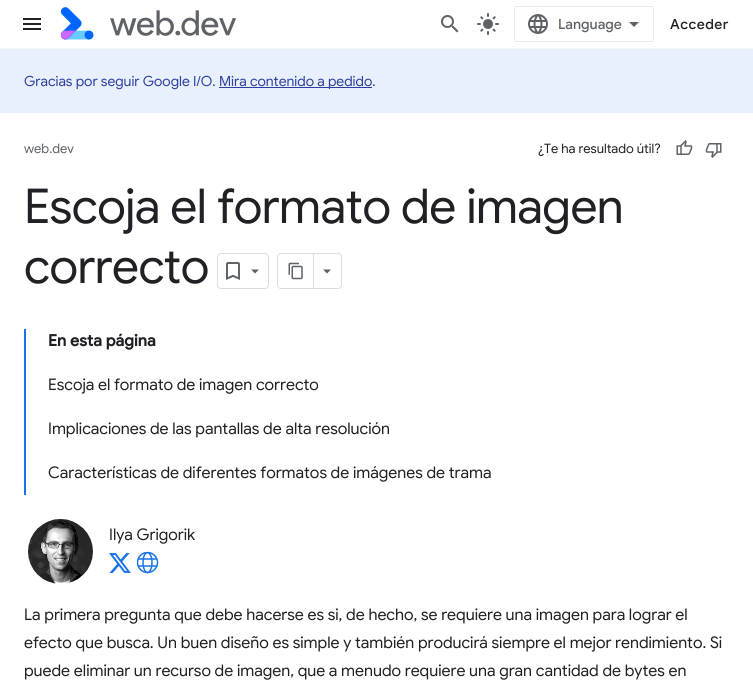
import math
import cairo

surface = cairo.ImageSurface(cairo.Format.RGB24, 753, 685)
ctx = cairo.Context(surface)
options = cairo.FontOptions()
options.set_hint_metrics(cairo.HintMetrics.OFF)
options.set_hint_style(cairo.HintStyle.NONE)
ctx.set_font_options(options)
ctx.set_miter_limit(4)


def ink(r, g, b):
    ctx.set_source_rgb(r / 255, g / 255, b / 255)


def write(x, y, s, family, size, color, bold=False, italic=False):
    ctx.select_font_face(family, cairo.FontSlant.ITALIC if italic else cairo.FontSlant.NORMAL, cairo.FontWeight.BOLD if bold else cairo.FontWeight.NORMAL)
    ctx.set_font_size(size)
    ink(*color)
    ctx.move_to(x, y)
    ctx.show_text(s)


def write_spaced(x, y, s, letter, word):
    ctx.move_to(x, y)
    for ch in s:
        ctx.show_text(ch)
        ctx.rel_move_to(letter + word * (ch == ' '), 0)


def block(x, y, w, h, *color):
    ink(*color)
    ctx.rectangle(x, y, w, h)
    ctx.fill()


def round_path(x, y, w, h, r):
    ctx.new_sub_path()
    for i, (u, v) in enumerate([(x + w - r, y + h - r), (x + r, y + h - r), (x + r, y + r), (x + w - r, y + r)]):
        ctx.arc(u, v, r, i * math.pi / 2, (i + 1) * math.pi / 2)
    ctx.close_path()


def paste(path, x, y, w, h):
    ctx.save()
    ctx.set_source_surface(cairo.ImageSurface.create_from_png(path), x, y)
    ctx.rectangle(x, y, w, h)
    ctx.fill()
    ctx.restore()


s1 = dict(family="Google Sans Medium", size=14, color=(95, 99, 104))
s2 = dict(family="Google Sans", size=14, color=(48, 63, 159))
s3 = dict(family="Google Sans", size=13, color=(95, 99, 104))
s4 = dict(family="Google Sans", size=13, color=(32, 33, 36))
s5 = dict(family="Google Sans", size=16, color=(32, 33, 36), bold=True)
s6 = dict(family="Google Sans", size=16, color=(32, 33, 36))

ink(255, 255, 255)
ctx.paint()
block(0, 48, 753, 1, 245, 246, 247)
paste("pic1.png", 23, 18, 18, 12)
paste("pic2.png", 60, 7, 177, 33)
paste("pic3.png", 441, 15, 18, 18)
paste("pic4.png", 477, 13, 22, 22)
round_path(514.5, 6.5, 139, 35, 1.5)
ink(232, 234, 237)
ctx.set_line_width(1)
ctx.stroke()
paste("pic5.png", 528, 14, 20, 20)
write(558, 29, "Language", **s1)
ctx.new_path()
ctx.move_to(634, 27)
ctx.line_to(629, 22)
ctx.line_to(639, 22)
ctx.close_path()
ctx.fill()
ink(32, 33, 36)
write_spaced(670, 29, "Acceder", 0.5, 0)
block(0, 49, 753, 64, 232, 240, 254)
write(24, 86, "Gracias por seguir Google I/O.", **s2)
block(219, 87, 153, 1, 48, 63, 159)
write(219, 86, "Mira contenido a pedido.", **s2)
write(24, 153, "web.dev", **s3)
write(538, 153, "¿Te ha resultado útil?", **s4)
paste("pic6.png", 676, 140, 17, 15)
paste("pic7.png", 705, 143, 17, 15)
ctx.set_font_size(48)
write_spaced(24, 223, "Escoja el formato de imagen", -0.5, 0)
write_spaced(24, 283, "correcto", -0.5, 0)
round_path(217.5, 253.5, 51, 35, 3.5)
ink(218, 220, 224)
ctx.stroke()
paste("pic8.png", 226, 262, 14, 18)
ink(95, 99, 104)
ctx.new_path()
ctx.move_to(251, 269.5)
ctx.line_to(259, 269.5)
ctx.line_to(255, 273.5)
ctx.close_path()
ctx.fill()
round_path(277.5, 253.5, 64, 35, 3.5)
ink(218, 220, 224)
ctx.stroke()
block(313, 254, 1, 34, 218, 220, 224)
paste("pic9.png", 288, 262, 15, 18)
ink(95, 99, 104)
ctx.new_path()
ctx.move_to(323, 269.5)
ctx.line_to(331, 269.5)
ctx.line_to(327, 273.5)
ctx.close_path()
ctx.fill()
block(24, 329, 2, 166, 26, 115, 232)
write(48, 346, "En esta página", **s5)
write(48, 390, "Escoja el formato de imagen correcto", **s6)
write(48, 434, "Implicaciones de las pantallas de alta resolución", **s6)
write(48, 478, "Características de diferentes formatos de imágenes de trama", **s6)
paste("pic10.png", 28, 519, 65, 65)
write(109, 540, "Ilya Grigorik", **s6)
paste("pic11.png", 109, 553, 22, 20)
ctx.save()
ctx.rectangle(137, 552, 22, 22)
ctx.clip()
ctx.arc(147.5, 562.5, 10, 0, 2 * math.pi)
ink(26, 115, 232)
ctx.set_line_width(1.5)
ctx.stroke()
ctx.restore()
ctx.new_path()
ctx.move_to(147.5, 552.5)
ctx.curve_to(150, 552.5, 152, 557, 152, 562.5)
ctx.curve_to(152, 568, 150, 572.5, 147.5, 572.5)
ctx.curve_to(145, 572.5, 143, 568, 143, 562.5)
ctx.curve_to(143, 557, 145, 552.5, 147.5, 552.5)
ctx.close_path()
ink(26, 115, 232)
ctx.set_line_width(1.5)
ctx.stroke()
ctx.new_path()
ctx.move_to(138, 559)
ctx.line_to(157, 559)
ctx.move_to(138, 566)
ctx.line_to(157, 566)
ctx.stroke()
write(24, 620, "La primera pregunta que debe hacerse es si, de hecho, se requiere una imagen para lograr el", **s6)
write(24, 648, "efecto que busca. Un buen diseño es simple y también producirá siempre el mejor rendimiento. Si", **s6)
write(24, 676, "puede eliminar un recurso de imagen, que a menudo requiere una gran cantidad de bytes en", **s6)
surface.write_to_png("screenshot.png")
